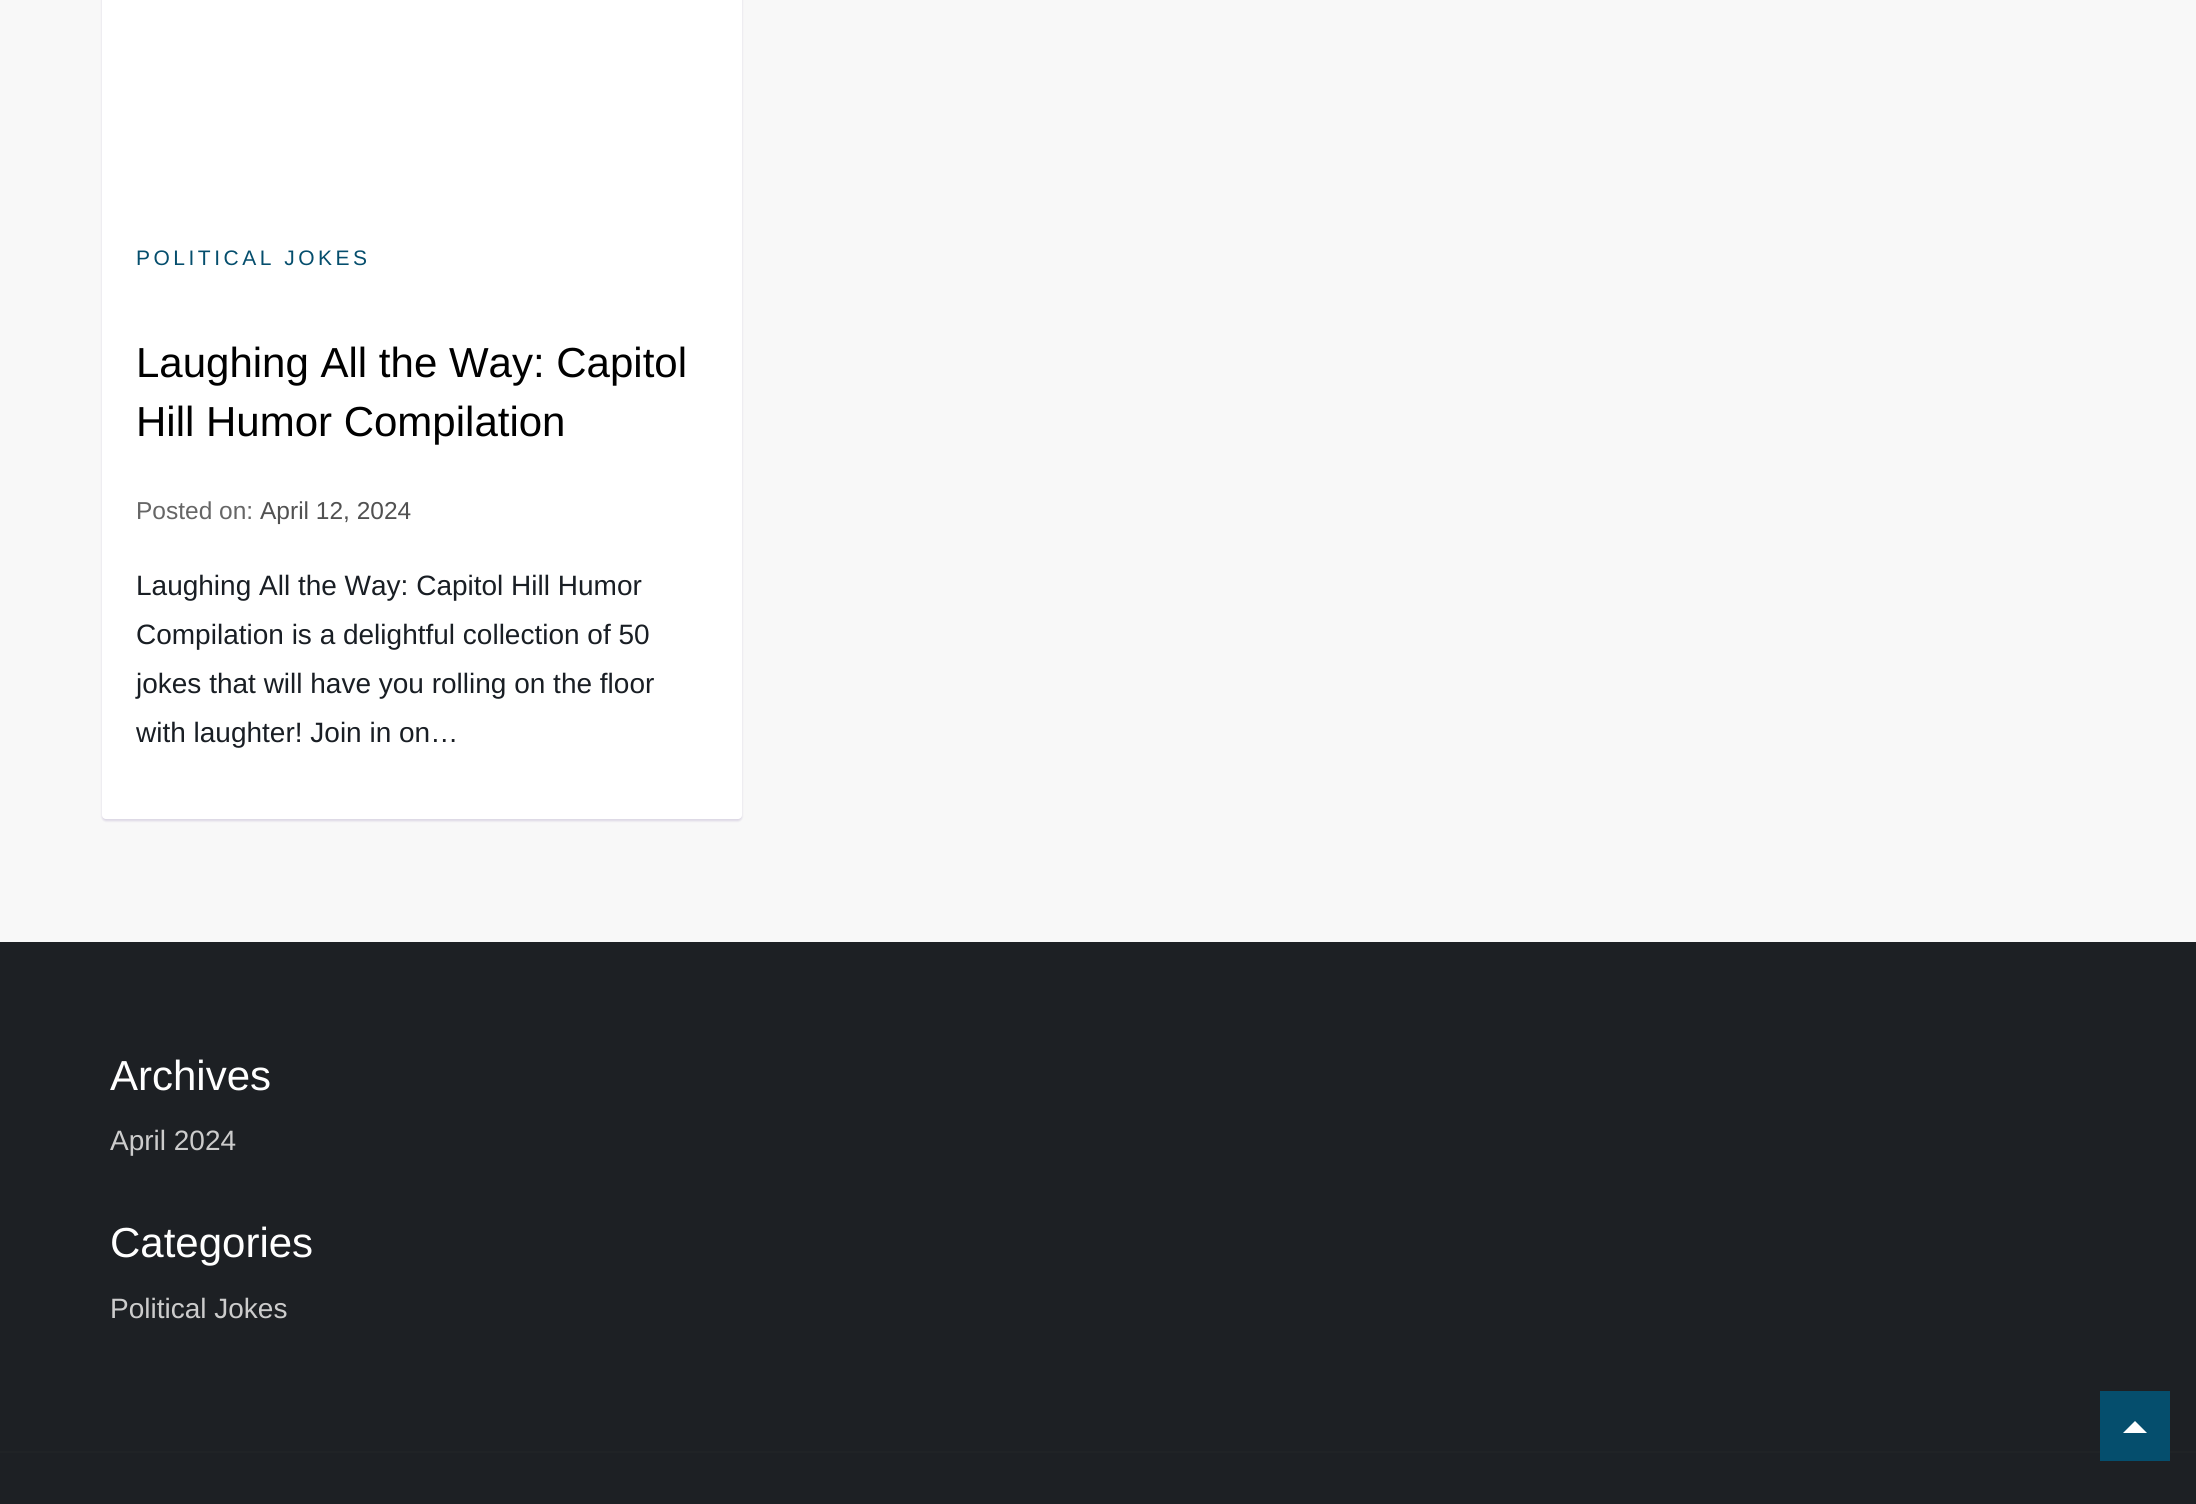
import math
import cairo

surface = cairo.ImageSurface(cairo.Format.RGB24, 2196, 1504)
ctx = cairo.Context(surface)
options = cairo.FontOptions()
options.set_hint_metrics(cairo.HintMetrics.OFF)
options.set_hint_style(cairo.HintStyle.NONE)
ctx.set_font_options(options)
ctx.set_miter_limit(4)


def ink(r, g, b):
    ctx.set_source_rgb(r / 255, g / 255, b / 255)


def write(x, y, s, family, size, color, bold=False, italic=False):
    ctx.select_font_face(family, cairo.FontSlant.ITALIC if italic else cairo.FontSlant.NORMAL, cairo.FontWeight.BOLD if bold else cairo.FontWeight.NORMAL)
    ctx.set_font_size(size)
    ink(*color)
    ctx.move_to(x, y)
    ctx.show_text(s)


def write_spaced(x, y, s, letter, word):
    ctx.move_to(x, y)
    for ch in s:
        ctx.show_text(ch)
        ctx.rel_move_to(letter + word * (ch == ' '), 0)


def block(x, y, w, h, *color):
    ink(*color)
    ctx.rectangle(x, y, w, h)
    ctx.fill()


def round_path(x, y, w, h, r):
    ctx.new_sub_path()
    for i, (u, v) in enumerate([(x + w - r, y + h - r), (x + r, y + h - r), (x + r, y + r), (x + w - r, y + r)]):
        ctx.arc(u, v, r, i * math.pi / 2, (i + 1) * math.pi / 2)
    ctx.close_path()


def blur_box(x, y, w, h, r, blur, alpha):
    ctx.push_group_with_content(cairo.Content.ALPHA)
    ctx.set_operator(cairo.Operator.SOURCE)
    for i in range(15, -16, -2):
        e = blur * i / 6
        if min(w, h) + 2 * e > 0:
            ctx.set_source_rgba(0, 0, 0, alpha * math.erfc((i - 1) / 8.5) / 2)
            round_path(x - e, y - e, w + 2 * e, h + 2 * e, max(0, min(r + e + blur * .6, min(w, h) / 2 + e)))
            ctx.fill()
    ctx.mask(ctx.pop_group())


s1 = dict(family="Liberation Sans", size=42, color=(0, 0, 0))
s2 = dict(family="Liberation Sans", size=24.5, color=(102, 102, 102))
s3 = dict(family="Liberation Sans", size=24.5, color=(81, 81, 81))
s4 = dict(family="Liberation Sans", size=28, color=(25, 30, 36))
s5 = dict(family="Liberation Sans", size=42, color=(255, 255, 255))
s6 = dict(family="Liberation Sans", size=28, color=(204, 204, 204))

ink(248, 248, 248)
ctx.paint()
ink(53, 19, 109)
blur_box(102, -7, 640, 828, 4, 1, 0.15)
ink(255, 255, 255)
round_path(102, -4, 640, 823, 4)
ctx.fill()
ctx.select_font_face("Liberation Sans")
ctx.set_font_size(21)
ink(5, 78, 109)
write_spaced(136, 265, "POLITICAL JOKES", 3.5, 0)
write(136, 377, "Laughing All the Way: Capitol", **s1)
write(136, 436, "Hill Humor Compilation", **s1)
write(136, 519, "Posted on:", **s2)
write(260, 519, "April 12, 2024", **s3)
write(136, 595, "Laughing All the Way: Capitol Hill Humor", **s4)
write(136, 644, "Compilation is a delightful collection of 50", **s4)
write(136, 693, "jokes that will have you rolling on the floor", **s4)
write(136, 742, "with laughter! Join in on…", **s4)
block(0, 942, 2196, 562, 29, 32, 36)
write(110, 1090, "Archives", **s5)
write(110, 1150, "April 2024", **s6)
write(110, 1257, "Categories", **s5)
write(110, 1318, "Political Jokes", **s6)
block(0, 1451, 2196, 2, 32, 35, 38)
block(2100, 1391, 70, 70, 5, 78, 109)
ink(255, 255, 255)
ctx.new_path()
ctx.move_to(2147, 1433)
ctx.line_to(2123, 1433)
ctx.line_to(2135, 1421)
ctx.close_path()
ctx.fill()
surface.write_to_png("screenshot.png")
